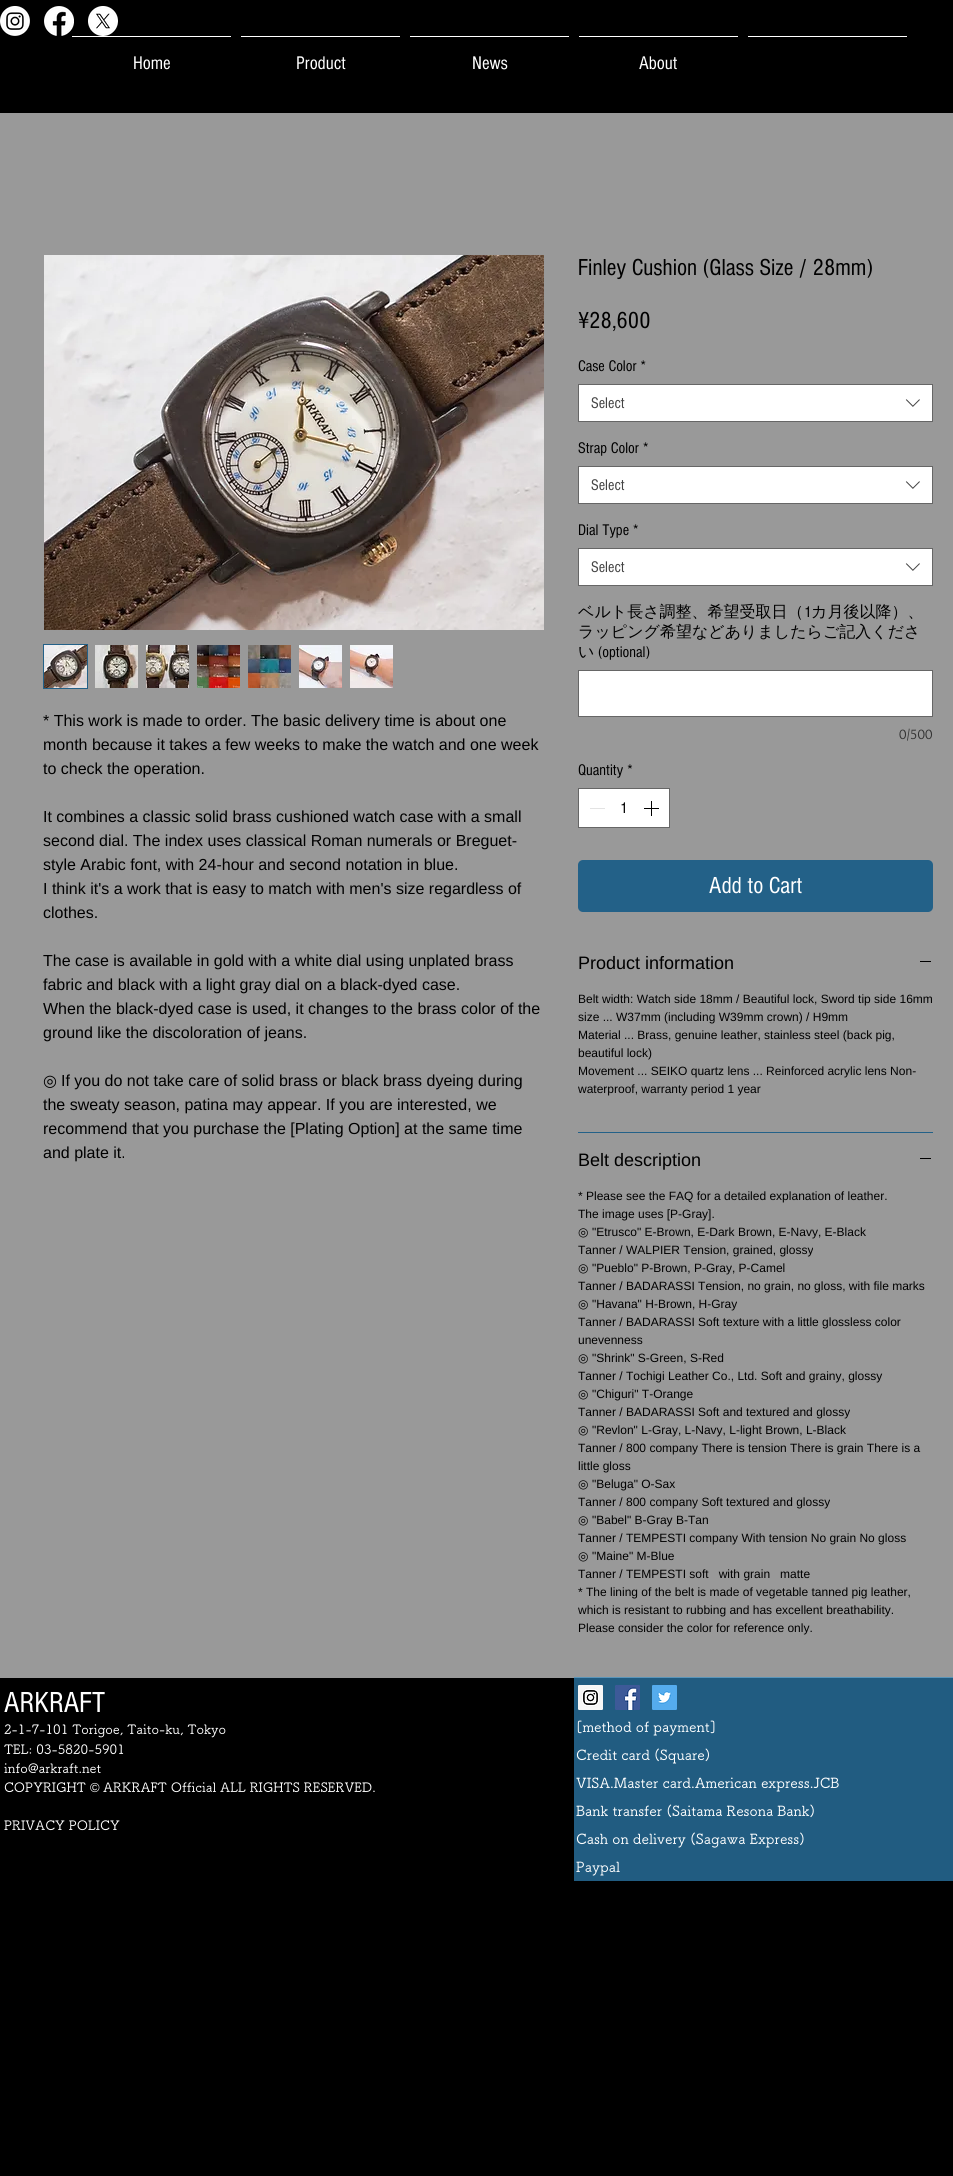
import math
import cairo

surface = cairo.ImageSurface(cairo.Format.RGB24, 953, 2176)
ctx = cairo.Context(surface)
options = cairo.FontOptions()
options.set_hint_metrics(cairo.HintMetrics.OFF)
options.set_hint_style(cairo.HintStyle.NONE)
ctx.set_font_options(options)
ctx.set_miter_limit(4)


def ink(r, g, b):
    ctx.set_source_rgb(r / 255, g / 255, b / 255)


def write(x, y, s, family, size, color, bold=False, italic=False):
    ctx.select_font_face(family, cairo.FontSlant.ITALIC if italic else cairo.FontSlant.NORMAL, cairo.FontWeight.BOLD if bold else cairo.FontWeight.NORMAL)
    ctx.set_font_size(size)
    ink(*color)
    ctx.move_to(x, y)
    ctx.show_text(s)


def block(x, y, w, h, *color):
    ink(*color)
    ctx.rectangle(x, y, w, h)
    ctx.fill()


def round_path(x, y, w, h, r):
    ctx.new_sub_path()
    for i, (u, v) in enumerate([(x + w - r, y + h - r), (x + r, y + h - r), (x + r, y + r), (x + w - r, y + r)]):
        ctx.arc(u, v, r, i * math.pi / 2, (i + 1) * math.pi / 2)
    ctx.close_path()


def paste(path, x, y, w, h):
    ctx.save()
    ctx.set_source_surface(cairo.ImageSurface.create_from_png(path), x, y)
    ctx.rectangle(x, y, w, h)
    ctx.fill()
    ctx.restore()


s1 = dict(family="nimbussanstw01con", size=19, color=(255, 255, 255))
s2 = dict(family="Liberation Sans", size=16, color=(0, 0, 0))
s3 = dict(family="DejaVu Sans", size=16, color=(0, 0, 0))
s4 = dict(family="nimbussanstw01con", size=24, color=(0, 0, 0))
s5 = dict(family="nimbussanstw01con", size=16, color=(0, 0, 0))
s6 = dict(family="nimbussanstw01con", size=16, color=(68, 68, 68))
s7 = dict(family="WenQuanYi Zen Hei Medium", size=16, color=(0, 0, 0))
s8 = dict(family="Overlock", size=14, color=(51, 51, 51))
s9 = dict(family="nimbussanstw01con", size=24, color=(255, 255, 255))
s10 = dict(family="Liberation Sans", size=18, color=(0, 0, 0))
s11 = dict(family="Liberation Sans", size=12, color=(0, 0, 0))
s12 = dict(family="DejaVu Sans", size=12, color=(0, 0, 0))
s13 = dict(family="nimbussanstw01con", size=30, color=(255, 255, 255))
s14 = dict(family="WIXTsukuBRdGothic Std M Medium", size=13, color=(255, 255, 255))
s15 = dict(family="Liberation Sans", size=13, color=(255, 255, 255))
s16 = dict(family="WIXTsukuBRdGothic Std M Medium", size=14, color=(255, 255, 255))

ink(0, 0, 0)
ctx.paint()
paste("pic1.png", 0, 6, 30, 30)
paste("pic2.png", 44, 6, 30, 30)
paste("pic3.png", 88, 6, 30, 30)
block(748, 36, 159, 1, 255, 255, 255)
block(72, 36, 159, 1, 255, 255, 255)
write(133, 69, "Home", **s1)
block(241, 36, 159, 1, 255, 255, 255)
write(296, 69, "Product", **s1)
block(410, 36, 159, 1, 255, 255, 255)
write(472, 69, "News", **s1)
block(579, 36, 159, 1, 255, 255, 255)
write(639, 69, "About", **s1)
block(0, 113, 953, 1565, 153, 153, 153)
block(574, 1677, 379, 1, 90, 149, 185)
paste("pic4.png", 44, 255, 500, 375)
ctx.rectangle(43.5, 644.5, 44, 44)
ink(35, 97, 136)
ctx.set_line_width(1)
ctx.stroke()
paste("pic5.png", 44, 645, 43, 43)
paste("pic6.png", 95, 645, 43, 43)
paste("pic7.png", 146, 645, 43, 43)
paste("pic8.png", 197, 645, 43, 43)
paste("pic9.png", 248, 645, 43, 43)
paste("pic10.png", 299, 645, 43, 43)
paste("pic11.png", 350, 645, 43, 43)
write(43, 726, "* This work is made to order. The basic delivery time is about one", **s2)
write(43, 750, "month because it takes a few weeks to make the watch and one week", **s2)
write(43, 774, "to check the operation.", **s2)
write(43, 822, "It combines a classic solid brass cushioned watch case with a small", **s2)
write(43, 846, "second dial. The index uses classical Roman numerals or Breguet-", **s2)
write(43, 870, "style Arabic font, with 24-hour and second notation in blue.", **s2)
write(43, 894, "I think it's a work that is easy to match with men's size regardless of", **s2)
write(43, 918, "clothes.", **s2)
write(43, 966, "The case is available in gold with a white dial using unplated brass", **s2)
write(43, 990, "fabric and black with a light gray dial on a black-dyed case.", **s2)
write(43, 1014, "When the black-dyed case is used, it changes to the brass color of the", **s2)
write(43, 1038, "ground like the discoloration of jeans.", **s2)
write(43, 1086, "◎", **s3)
write(61, 1086, "If you do not take care of solid brass or black brass dyeing during", **s2)
write(43, 1110, "the sweaty season, patina may appear. If you are interested, we", **s2)
write(43, 1134, "recommend that you purchase the [Plating Option] at the same time", **s2)
write(43, 1158, "and plate it.", **s2)
write(578, 275, "Finley Cushion (Glass Size / 28mm)", **s4)
write(578, 328, "¥28,600", **s4)
write(578, 371, "Case Color *", **s5)
ink(255, 255, 255)
ctx.rectangle(578.5, 384.5, 354, 37)
ctx.fill_preserve()
ink(102, 102, 102)
ctx.stroke()
write(591, 408, "Select", **s6)
paste("pic12.png", 905, 399, 15, 8)
write(578, 453, "Strap Color *", **s5)
ink(255, 255, 255)
ctx.rectangle(578.5, 466.5, 354, 37)
ctx.fill_preserve()
ink(102, 102, 102)
ctx.stroke()
write(591, 490, "Select", **s6)
paste("pic12.png", 905, 481, 15, 8)
write(578, 535, "Dial Type *", **s5)
ink(255, 255, 255)
ctx.rectangle(578.5, 548.5, 354, 37)
ctx.fill_preserve()
ink(102, 102, 102)
ctx.stroke()
write(591, 572, "Select", **s6)
paste("pic12.png", 905, 563, 15, 8)
write(578, 617, "ベルト長さ調整、希望受取日（", **s7)
write(804, 617, "1", **s5)
write(811, 617, "カ月後以降）、", **s7)
write(578, 637, "ラッピング希望などありましたらご記入くださ", **s7)
write(578, 657, "い", **s7)
write(598, 657, "(optional)", **s5)
ink(255, 255, 255)
ctx.rectangle(578.5, 670.5, 354, 46)
ctx.fill_preserve()
ink(102, 102, 102)
ctx.stroke()
write(899, 739, "0/500", **s8)
write(578, 775, "Quantity *", **s5)
ink(255, 255, 255)
ctx.rectangle(578.5, 788.5, 91, 39)
ctx.fill_preserve()
ink(102, 102, 102)
ctx.stroke()
block(590, 808, 15, 1, 227, 227, 227)
write(620, 813, "1", **s5)
paste("pic13.png", 644, 801, 15, 15)
ink(35, 97, 136)
round_path(578, 860, 355, 52, 5)
ctx.fill()
write(709, 893, "Add to Cart", **s9)
block(578, 1132, 355, 1, 35, 97, 136)
write(578, 969, "Product information", **s10)
block(920, 961, 11, 1, 0, 0, 0)
write(578, 1003, "Belt width: Watch side 18mm / Beautiful lock, Sword tip side 16mm", **s11)
write(578, 1021, "size ... W37mm (including W39mm crown) / H9mm", **s11)
write(578, 1039, "Material ... Brass, genuine leather, stainless steel (back pig,", **s11)
write(578, 1057, "beautiful lock)", **s11)
write(578, 1075, "Movement ... SEIKO quartz lens ... Reinforced acrylic lens Non-", **s11)
write(578, 1093, "waterproof, warranty period 1 year", **s11)
write(578, 1166, "Belt description", **s10)
block(920, 1158, 11, 1, 0, 0, 0)
write(578, 1200, "* Please see the FAQ for a detailed explanation of leather.", **s11)
write(578, 1218, "The image uses [P-Gray].", **s11)
write(578, 1236, "◎", **s12)
write(592, 1236, "\"Etrusco\" E-Brown, E-Dark Brown, E-Navy, E-Black", **s11)
write(578, 1254, "Tanner / WALPIER Tension, grained, glossy", **s11)
write(578, 1272, "◎", **s12)
write(592, 1272, "\"Pueblo\" P-Brown, P-Gray, P-Camel", **s11)
write(578, 1290, "Tanner / BADARASSI Tension, no grain, no gloss, with file marks", **s11)
write(578, 1308, "◎", **s12)
write(592, 1308, "\"Havana\" H-Brown, H-Gray", **s11)
write(578, 1326, "Tanner / BADARASSI Soft texture with a little glossless color", **s11)
write(578, 1344, "unevenness", **s11)
write(578, 1362, "◎", **s12)
write(592, 1362, "\"Shrink\" S-Green, S-Red", **s11)
write(578, 1380, "Tanner / Tochigi Leather Co., Ltd. Soft and grainy, glossy", **s11)
write(578, 1398, "◎", **s12)
write(592, 1398, "\"Chiguri\" T-Orange", **s11)
write(578, 1416, "Tanner / BADARASSI Soft and textured and glossy", **s11)
write(578, 1434, "◎", **s12)
write(592, 1434, "\"Revlon\" L-Gray, L-Navy, L-light Brown, L-Black", **s11)
write(578, 1452, "Tanner / 800 company There is tension There is grain There is a", **s11)
write(578, 1470, "little gloss", **s11)
write(578, 1488, "◎", **s12)
write(592, 1488, "\"Beluga\" O-Sax", **s11)
write(578, 1506, "Tanner / 800 company Soft textured and glossy", **s11)
write(578, 1524, "◎", **s12)
write(592, 1524, "\"Babel\" B-Gray B-Tan", **s11)
write(578, 1542, "Tanner / TEMPESTI company With tension No grain No gloss", **s11)
write(578, 1560, "◎", **s12)
write(592, 1560, "\"Maine\" M-Blue", **s11)
write(578, 1578, "Tanner / TEMPESTI soft   with grain   matte", **s11)
write(578, 1596, "* The lining of the belt is made of vegetable tanned pig leather,", **s11)
write(578, 1614, "which is resistant to rubbing and has excellent breathability.", **s11)
write(578, 1632, "Please consider the color for reference only.", **s11)
write(4, 1712, "ARKRAFT", **s13)
block(574, 1678, 379, 203, 33, 92, 129)
paste("pic14.png", 578, 1685, 25, 25)
paste("pic15.png", 615, 1685, 25, 25)
paste("pic16.png", 652, 1685, 25, 25)
write(4, 1734, "2-1-7-101 Torigoe, Taito-ku, Tokyo", **s14)
write(4, 1754, "TEL: 03-5820-5901", **s14)
write(4, 1773, "info@arkraft.net", **s14)
write(4, 1792, "COPYRIGHT", **s14)
write(90, 1792, "©", **s15)
write(103, 1792, "ARKRAFT Official ALL RIGHTS RESERVED.", **s14)
write(4, 1830, "PRIVACY POLICY", **s14)
write(576, 1732, "[method of payment]", **s16)
write(576, 1760, "Credit card (Square)", **s16)
write(576, 1788, "VISA.Master card.American express.JCB", **s16)
write(576, 1816, "Bank transfer (Saitama Resona Bank)", **s16)
write(576, 1844, "Cash on delivery (Sagawa Express)", **s16)
write(576, 1872, "Paypal", **s16)
surface.write_to_png("screenshot.png")
